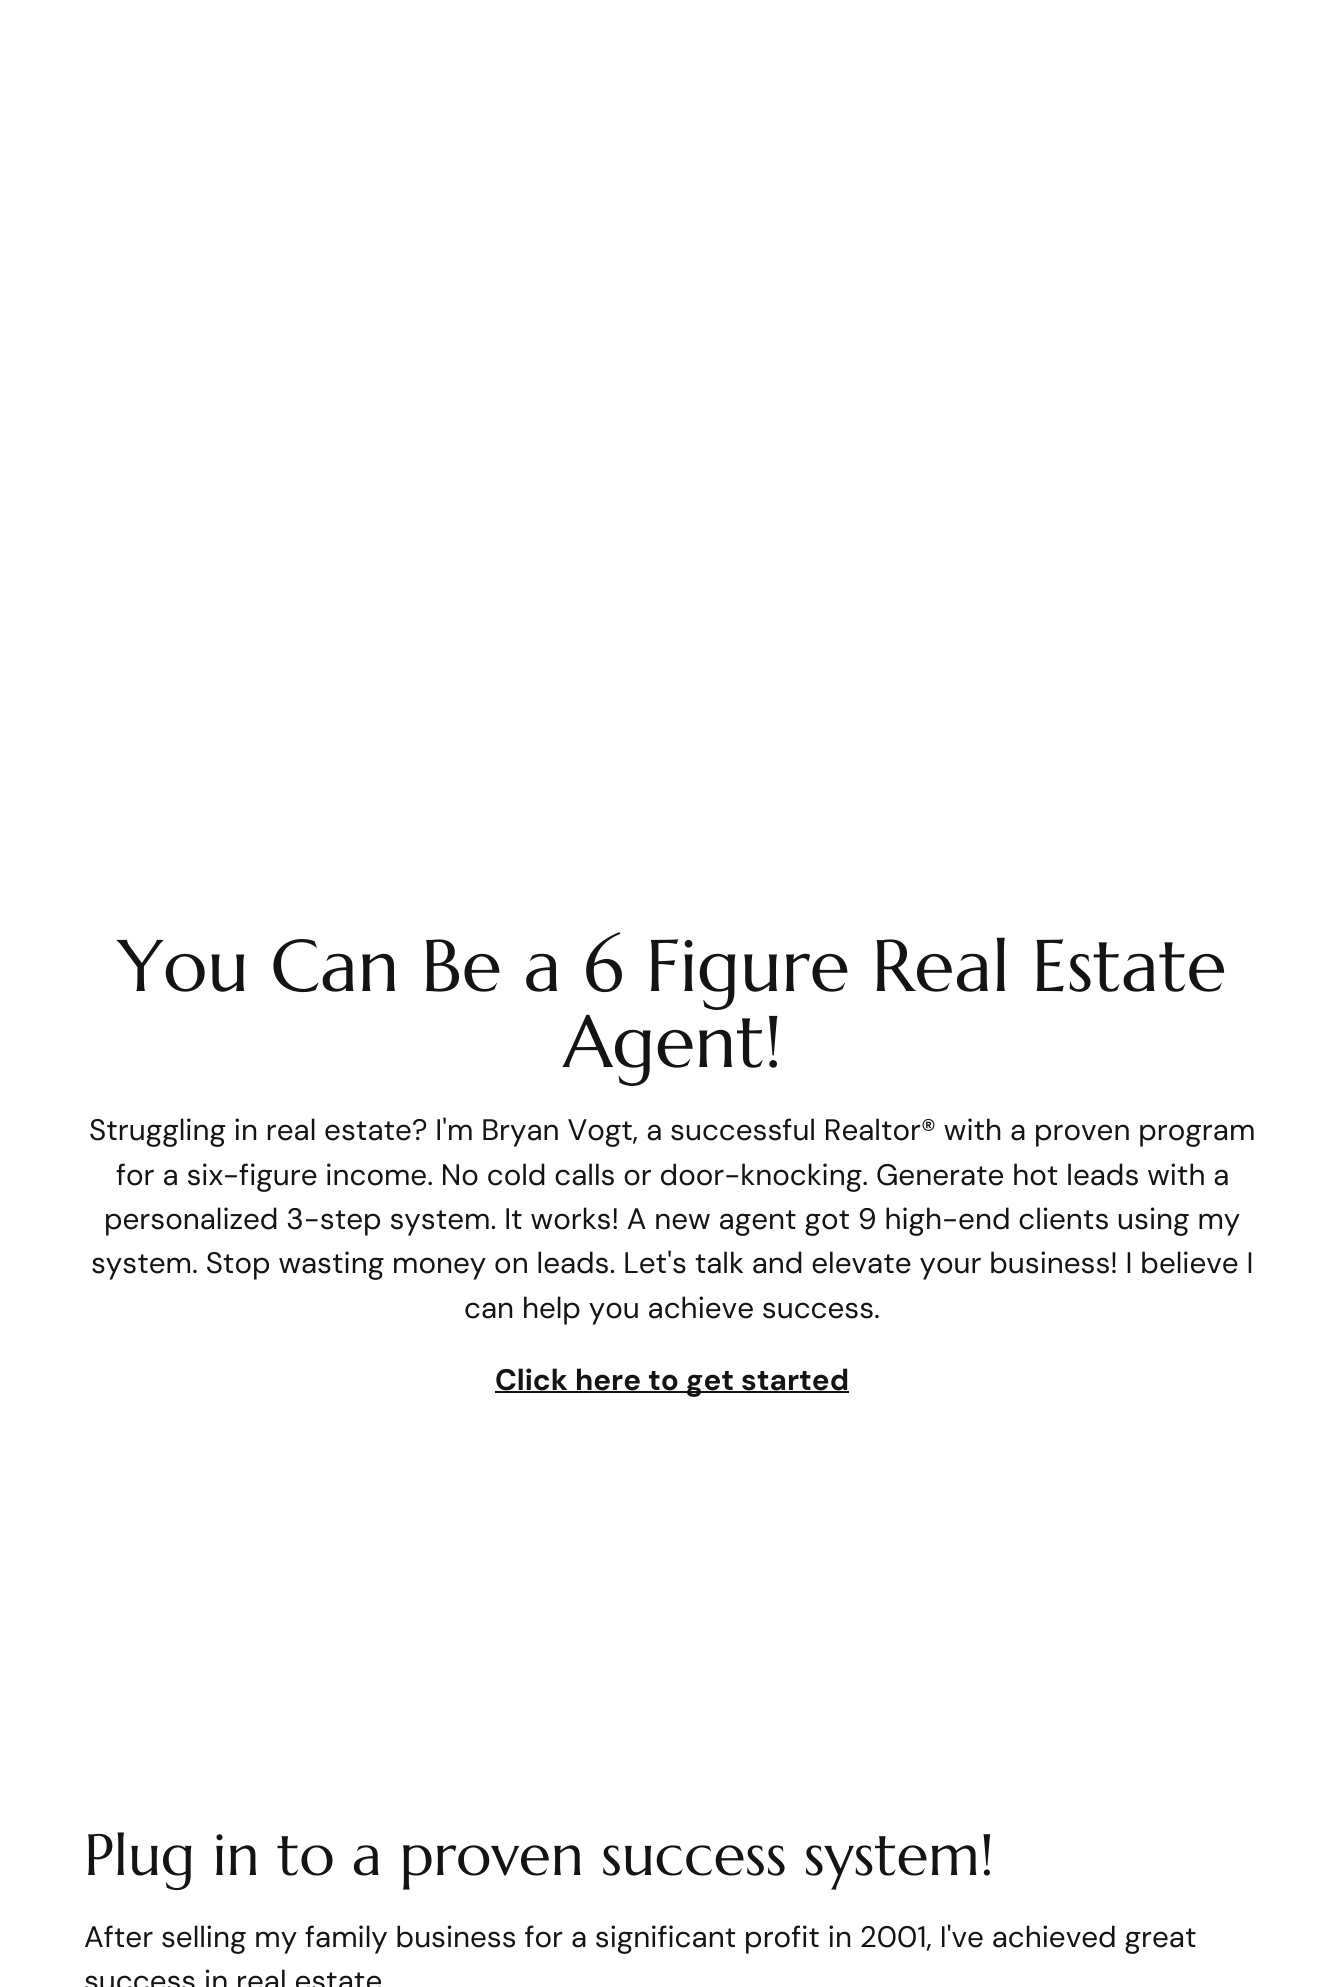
import math
import cairo

surface = cairo.ImageSurface(cairo.Format.RGB24, 1343, 1987)
ctx = cairo.Context(surface)
options = cairo.FontOptions()
options.set_hint_metrics(cairo.HintMetrics.OFF)
options.set_hint_style(cairo.HintStyle.NONE)
ctx.set_font_options(options)
ctx.set_miter_limit(4)


def ink(r, g, b):
    ctx.set_source_rgb(r / 255, g / 255, b / 255)


def write(x, y, s, family, size, color, bold=False, italic=False):
    ctx.select_font_face(family, cairo.FontSlant.ITALIC if italic else cairo.FontSlant.NORMAL, cairo.FontWeight.BOLD if bold else cairo.FontWeight.NORMAL)
    ctx.set_font_size(size)
    ink(*color)
    ctx.move_to(x, y)
    ctx.show_text(s)


def block(x, y, w, h, *color):
    ink(*color)
    ctx.rectangle(x, y, w, h)
    ctx.fill()


s1 = dict(family="Marcellus", size=73, color=(22, 19, 23))
s2 = dict(family="DM Sans", size=29.6, color=(22, 19, 23))
s3 = dict(family="DM Sans", size=29.6, color=(22, 19, 23), bold=True)
s4 = dict(family="Marcellus", size=58.25, color=(22, 19, 23))

ink(255, 255, 255)
ctx.paint()
write(118, 991, "You Can Be a 6 Figure Real Estate", **s1)
write(563, 1067, "Agent!", **s1)
write(89, 1140, "Struggling in real estate? I'm Bryan Vogt, a successful Realtor® with a proven program", **s2)
write(116, 1185, "for a six-figure income. No cold calls or door-knocking. Generate hot leads with a", **s2)
write(104, 1229, "personalized 3-step system. It works! A new agent got 9 high-end clients using my", **s2)
write(91, 1273, "system. Stop wasting money on leads. Let's talk and elevate your business! I believe I", **s2)
write(464, 1318, "can help you achieve success.", **s2)
block(495, 1391, 354, 2, 22, 19, 23)
write(495, 1390, "Click here to get started", **s3)
write(84, 1875, "Plug in to a proven success system!", **s4)
write(84, 1947, "After selling my family business for a significant profit in 2001, I've achieved great", **s2)
write(84, 1991, "success in real estate", **s2)
surface.write_to_png("screenshot.png")
